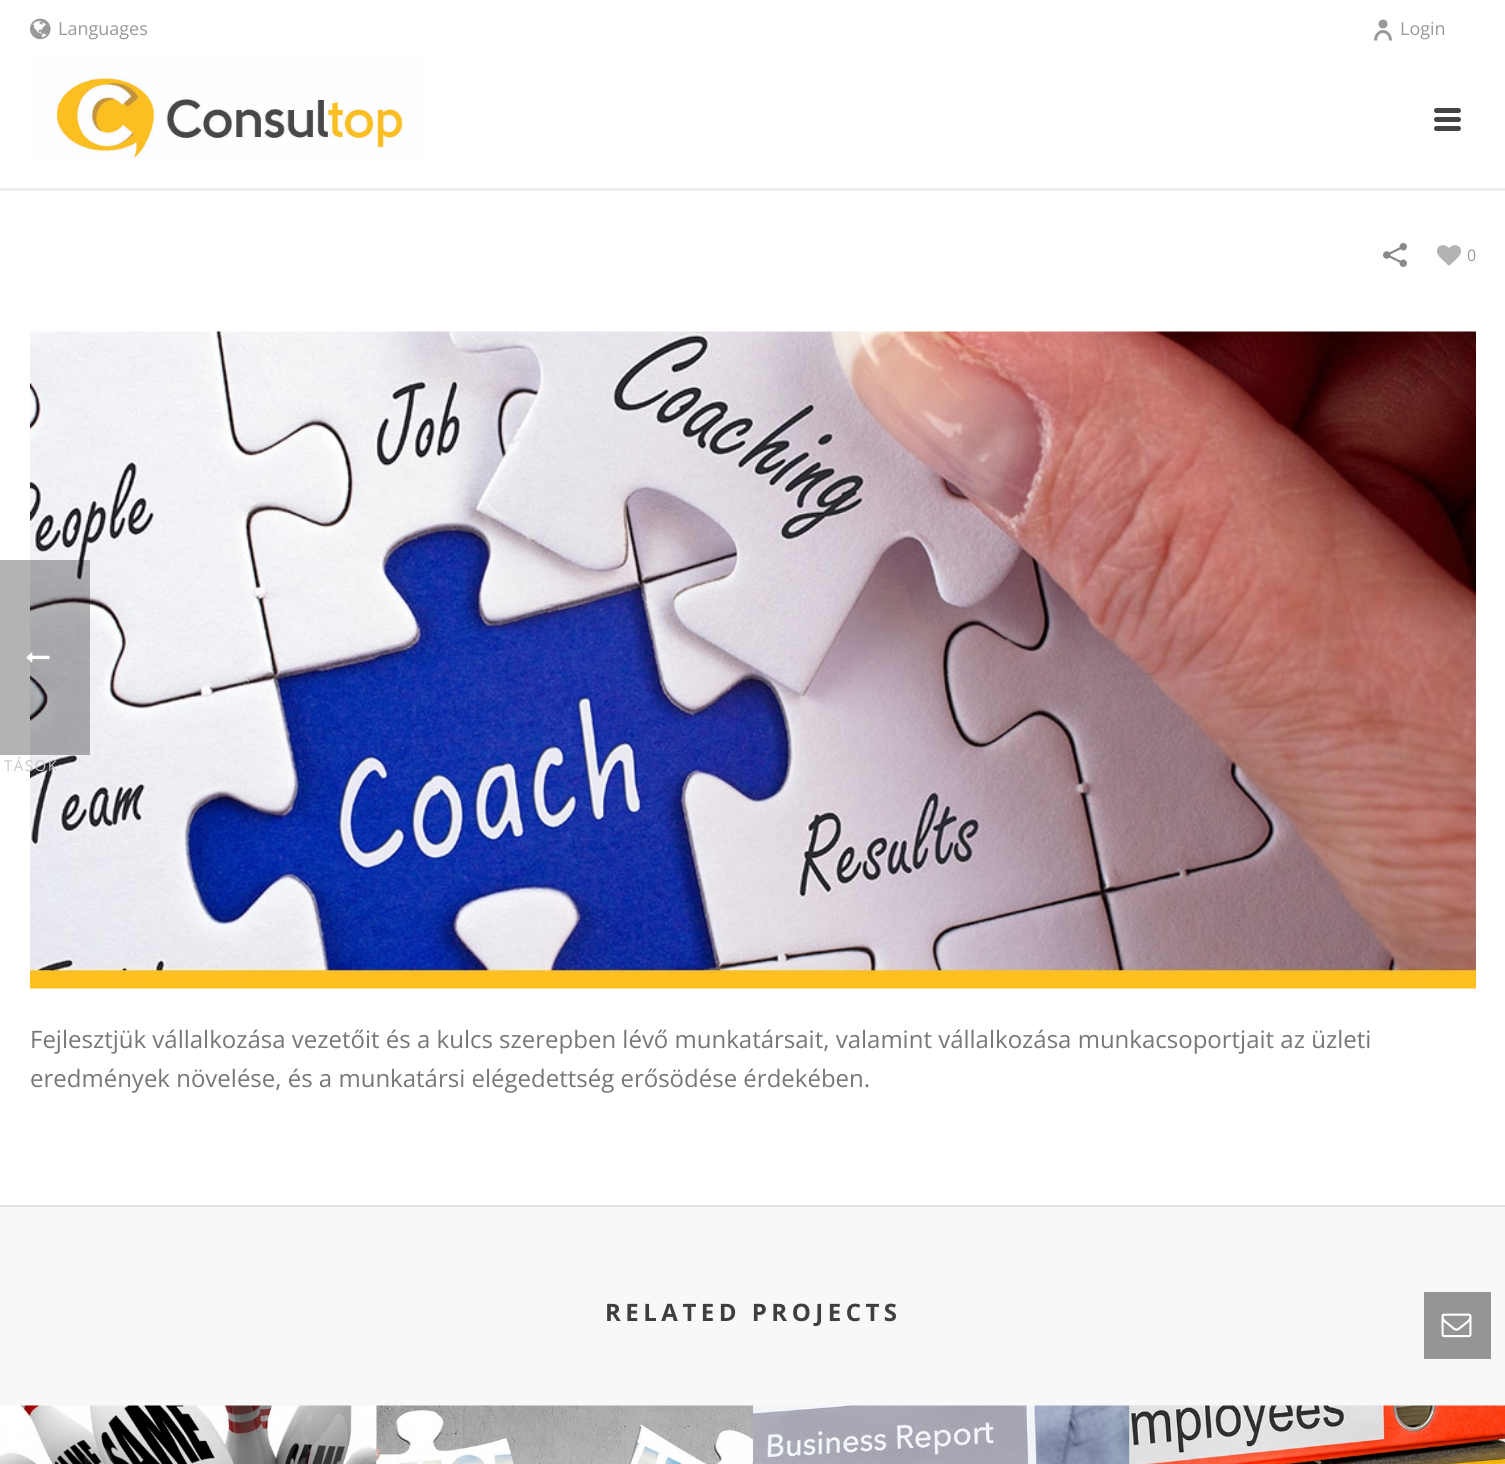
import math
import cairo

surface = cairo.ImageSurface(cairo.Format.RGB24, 1505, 1464)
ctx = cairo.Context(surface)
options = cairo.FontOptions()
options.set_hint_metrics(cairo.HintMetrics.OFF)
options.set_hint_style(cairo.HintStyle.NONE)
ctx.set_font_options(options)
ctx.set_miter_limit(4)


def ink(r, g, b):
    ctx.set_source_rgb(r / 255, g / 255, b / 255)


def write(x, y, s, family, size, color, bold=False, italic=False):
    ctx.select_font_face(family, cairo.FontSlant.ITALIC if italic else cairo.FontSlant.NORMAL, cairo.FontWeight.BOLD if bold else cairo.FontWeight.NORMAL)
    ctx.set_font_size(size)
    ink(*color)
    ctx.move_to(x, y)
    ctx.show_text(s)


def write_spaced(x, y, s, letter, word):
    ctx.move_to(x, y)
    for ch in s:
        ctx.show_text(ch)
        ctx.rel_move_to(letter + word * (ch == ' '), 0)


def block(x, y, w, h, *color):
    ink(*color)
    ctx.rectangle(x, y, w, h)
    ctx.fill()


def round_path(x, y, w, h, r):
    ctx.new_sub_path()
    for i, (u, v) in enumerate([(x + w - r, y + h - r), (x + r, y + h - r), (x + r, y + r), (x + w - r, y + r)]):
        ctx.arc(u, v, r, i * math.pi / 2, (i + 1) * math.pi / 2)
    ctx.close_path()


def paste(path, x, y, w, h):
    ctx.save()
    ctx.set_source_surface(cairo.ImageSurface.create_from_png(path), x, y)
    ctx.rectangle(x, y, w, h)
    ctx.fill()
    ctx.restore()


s1 = dict(family="Open Sans", size=18, color=(153, 153, 153))
s2 = dict(family="Open Sans", size=16, color=(153, 153, 153))
s3 = dict(family="Open Sans", size=24, color=(119, 119, 119))

ink(255, 255, 255)
ctx.paint()
paste("pic7.png", 30, 331, 1446, 658)
ctx.set_source_rgba(0, 0, 0, 0.3)
ctx.rectangle(0, 560, 90, 195)
ctx.fill()
paste("pic1.png", 26, 652, 24, 11)
ctx.select_font_face("Open Sans")
ctx.set_font_size(15)
ink(196, 197, 199)
write_spaced(4, 771, "TÁSOK", 1.5, 0)
block(0, 188, 1505, 3, 237, 237, 237)
paste("pic2.png", 30, 18, 21, 22)
write(58, 35, "Languages", **s1)
paste("pic3.png", 1374, 19, 18, 22)
write(1400, 35, "Login", **s1)
paste("pic4.png", 30, 53, 397, 107)
ink(68, 68, 68)
round_path(1434, 108, 27, 5, 2.5)
ctx.fill()
round_path(1434, 117, 27, 5, 2.5)
ctx.fill()
round_path(1434, 126, 27, 5, 2.5)
ctx.fill()
paste("pic5.png", 1383, 243, 24, 24)
paste("pic6.png", 1437, 245, 24, 21)
write(1467, 261, "0", **s2)
write(30, 1048, "Fejlesztjük vállalkozása vezetőit és a kulcs szerepben lévő munkatársait, valamint vállalkozása munkacsoportjait az üzleti", **s3)
write(30, 1087, "eredmények növelése, és a munkatársi elégedettség erősödése érdekében.", **s3)
block(0, 1207, 1505, 257, 248, 248, 248)
block(0, 1205, 1505, 2, 223, 226, 229)
ctx.select_font_face("Open Sans", cairo.FontSlant.NORMAL, cairo.FontWeight.BOLD)
ink(63, 63, 63)
write_spaced(605, 1321, "RELATED PROJECTS", 4.5, 0)
paste("pic8.png", 0, 1405, 377, 59)
paste("pic9.png", 376, 1405, 377, 59)
paste("pic10.png", 753, 1405, 377, 59)
paste("pic11.png", 1129, 1405, 376, 59)
block(1424, 1292, 67, 67, 149, 149, 149)
paste("pic12.png", 1441, 1313, 31, 25)
surface.write_to_png("screenshot.png")
